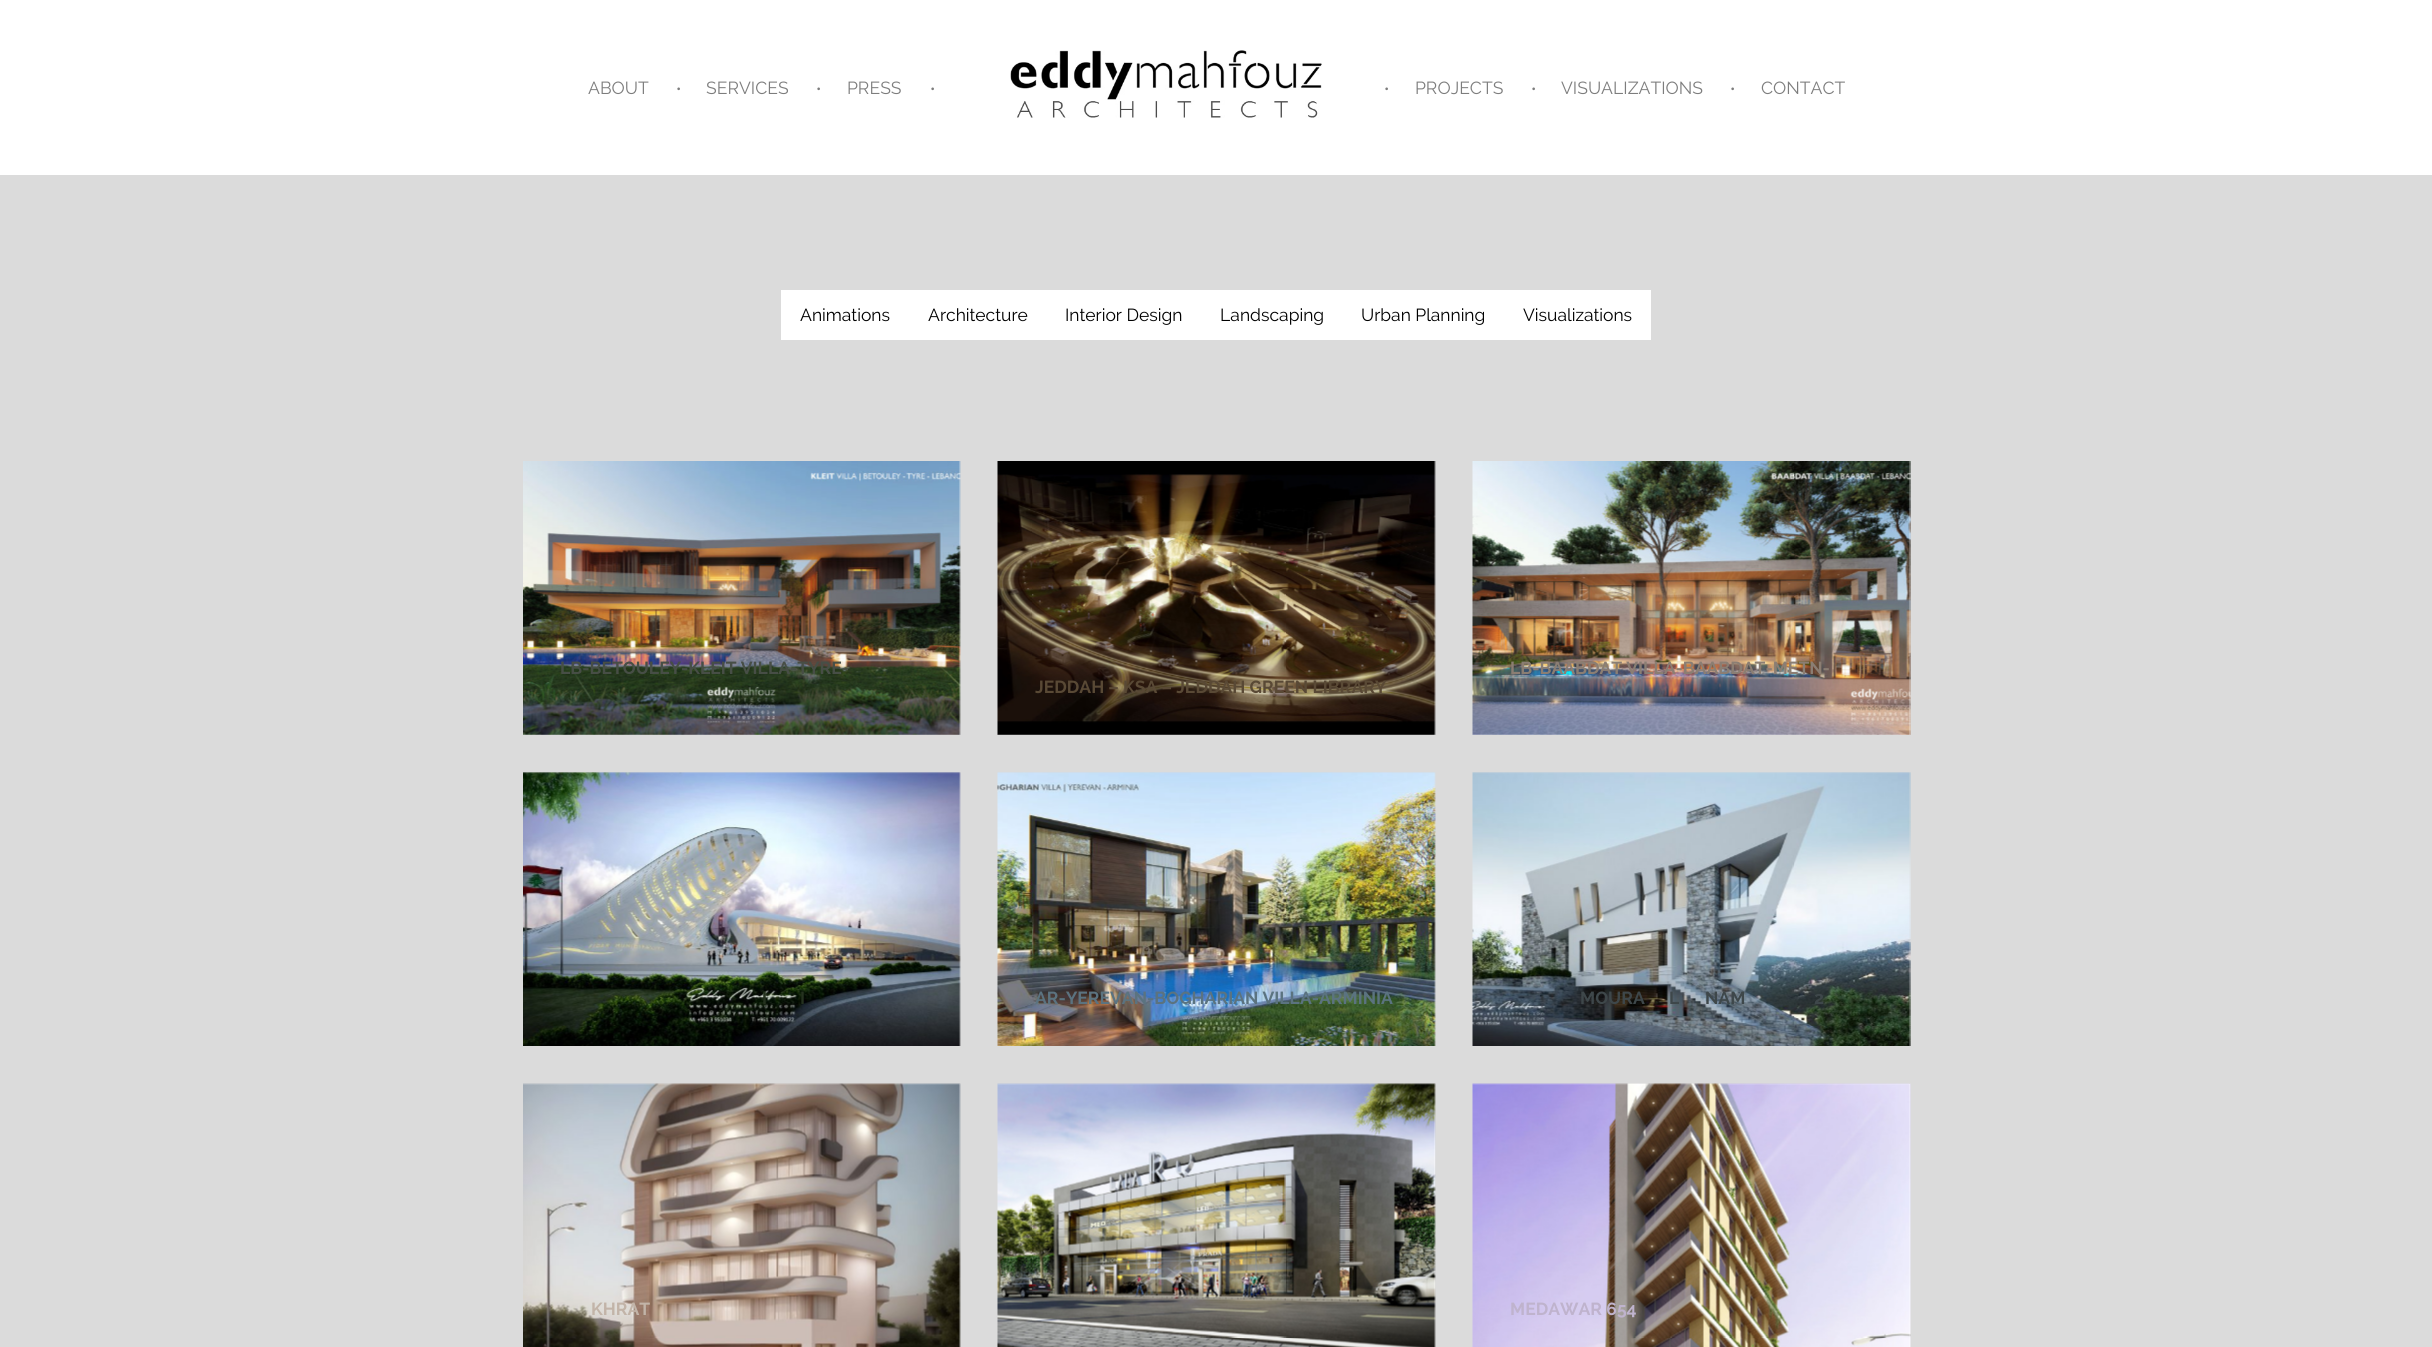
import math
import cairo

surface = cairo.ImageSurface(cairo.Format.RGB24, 2432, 1347)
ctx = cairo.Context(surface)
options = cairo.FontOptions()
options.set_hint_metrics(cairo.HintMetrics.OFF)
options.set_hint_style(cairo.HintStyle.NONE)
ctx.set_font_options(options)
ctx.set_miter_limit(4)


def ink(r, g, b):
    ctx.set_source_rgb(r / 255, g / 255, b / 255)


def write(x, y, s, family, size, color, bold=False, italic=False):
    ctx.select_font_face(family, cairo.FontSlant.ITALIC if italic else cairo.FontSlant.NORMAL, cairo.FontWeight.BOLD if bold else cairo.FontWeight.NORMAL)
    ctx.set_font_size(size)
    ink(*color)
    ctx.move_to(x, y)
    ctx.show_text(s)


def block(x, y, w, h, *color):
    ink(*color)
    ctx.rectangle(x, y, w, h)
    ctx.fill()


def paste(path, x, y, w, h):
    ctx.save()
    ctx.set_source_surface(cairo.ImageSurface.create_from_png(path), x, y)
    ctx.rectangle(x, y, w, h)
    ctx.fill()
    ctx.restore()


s1 = dict(family="Raleway", size=17.5, color=(125, 125, 125))
s2 = dict(family="Raleway", size=15, color=(125, 125, 125))
s3 = dict(family="Raleway", size=17.5, color=(0, 0, 0))
s4 = dict(family="Raleway", size=17.5, color=(71, 78, 70), bold=True)
s5 = dict(family="Raleway", size=17.5, color=(139, 126, 115), bold=True)
s6 = dict(family="Raleway", size=17.5, color=(89, 73, 53), bold=True)
s7 = dict(family="Raleway", size=17.5, color=(37, 50, 31), bold=True)
s8 = dict(family="Raleway", size=17.5, color=(91, 115, 128), bold=True)
s9 = dict(family="Raleway", size=17.5, color=(62, 71, 74), bold=True)
s10 = dict(family="Raleway", size=17.5, color=(194, 180, 168), bold=True)
s11 = dict(family="Raleway", size=17.5, color=(191, 179, 205), bold=True)

ink(219, 219, 219)
ctx.paint()
block(0, 0, 2432, 175, 255, 255, 255)
write(588, 94, "ABOUT", **s1)
write(676, 94, "•", **s2)
write(706, 94, "SERVICES", **s1)
write(816, 94, "•", **s2)
write(847, 94, "PRESS", **s1)
write(930, 94, "•", **s2)
paste("pic1.png", 1010, 50, 312, 68)
write(1384, 94, "•", **s2)
write(1415, 94, "PROJECTS", **s1)
write(1531, 94, "•", **s2)
write(1561, 94, "VISUALIZATIONS", **s1)
write(1730, 94, "•", **s2)
write(1761, 94, "CONTACT", **s1)
block(781, 290, 870, 50, 255, 255, 255)
write(800, 321, "Animations", **s3)
write(928, 321, "Architecture", **s3)
write(1065, 321, "Interior Design", **s3)
write(1220, 321, "Landscaping", **s3)
write(1361, 321, "Urban Planning", **s3)
write(1523, 321, "Visualizations", **s3)
block(523, 461, 437, 274, 255, 255, 255)
paste("pic2.png", 523, 461, 438, 274)
write(560, 674, "LB-BETOULEY-KLEIT VILLA-TYRE-", **s4)
block(1473, 461, 437, 274, 255, 255, 255)
paste("pic3.png", 1472, 461, 439, 274)
write(1510, 674, "LB-BAABDAT VILLA-BAABDAT-METN-", **s5)
block(998, 461, 437, 274, 255, 255, 255)
paste("pic4.png", 997, 461, 439, 274)
write(1035, 693, "JEDDAH – KSA – JEDDAH GREEN LIBRARY", **s6)
paste("pic5.png", 523, 772, 438, 274)
write(762, 1004, "I", **s7)
write(800, 1004, "I", **s7)
paste("pic6.png", 997, 772, 439, 274)
write(1035, 1004, "AR-YEREVAN-BOGHARIAN VILLA-ARMINIA", **s8)
paste("pic7.png", 1472, 772, 439, 274)
write(1580, 1004, "MOURA", **s9)
write(1669, 1004, "L", **s9)
write(1705, 1004, "NAM", **s9)
write(1814, 1004, "2", **s9)
block(523, 1084, 437, 263, 255, 255, 255)
paste("pic8.png", 523, 1083, 438, 264)
write(591, 1315, "KHRAT", **s10)
block(998, 1084, 437, 263, 255, 255, 255)
paste("pic9.png", 997, 1083, 439, 264)
block(1473, 1084, 437, 263, 255, 255, 255)
paste("pic10.png", 1472, 1083, 439, 264)
write(1510, 1315, "MEDAWAR 654", **s11)
surface.write_to_png("screenshot.png")
